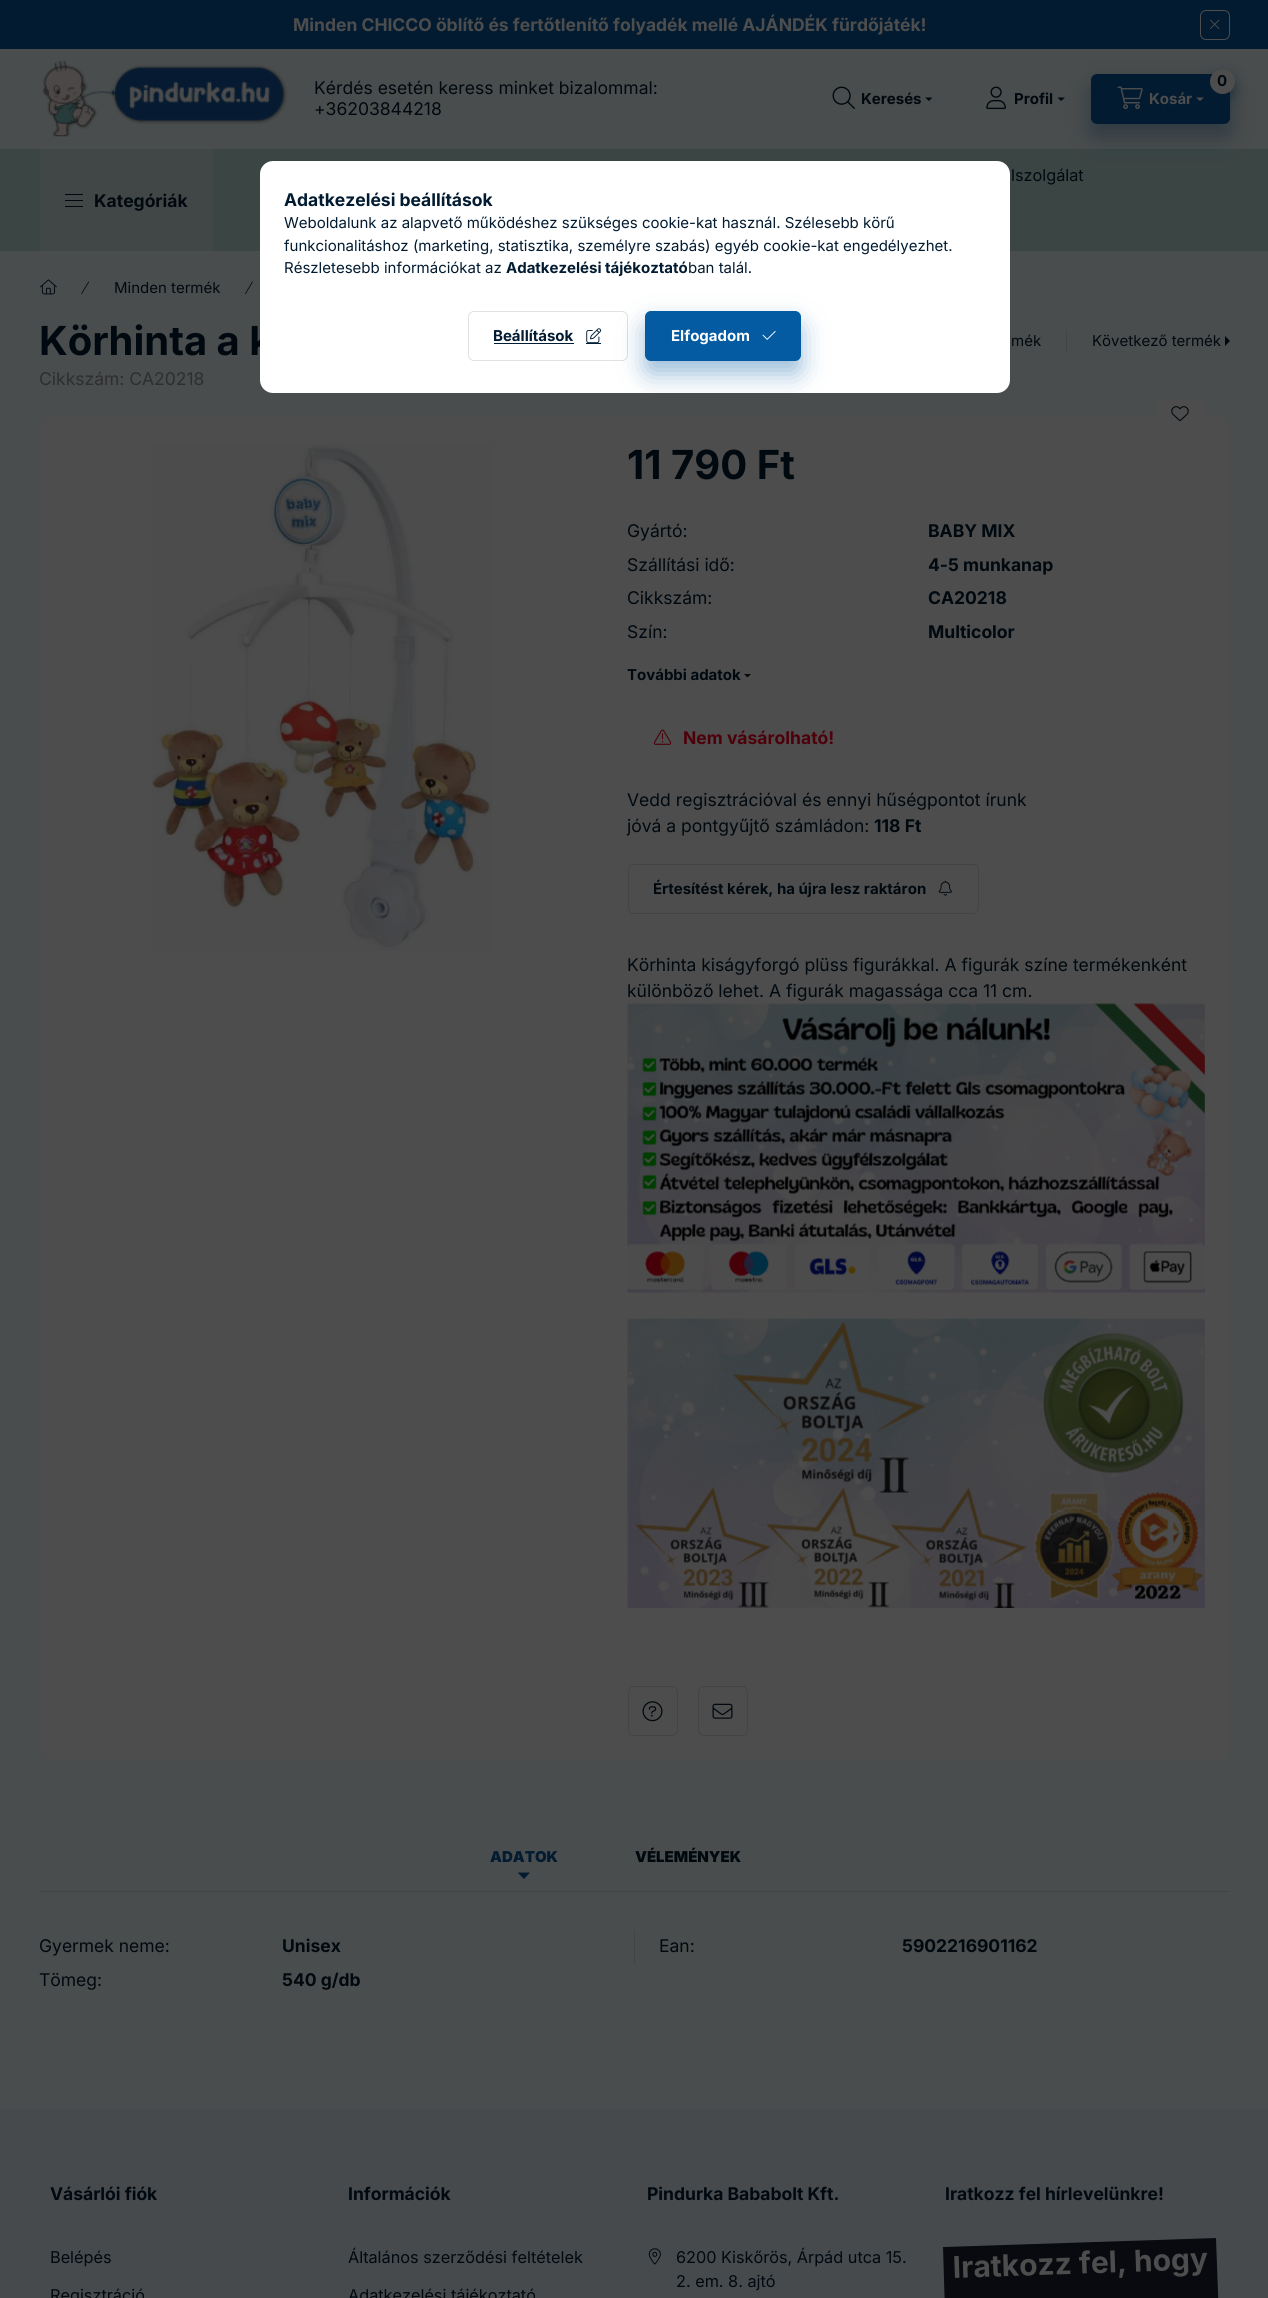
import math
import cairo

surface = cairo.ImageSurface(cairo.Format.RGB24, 1268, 2298)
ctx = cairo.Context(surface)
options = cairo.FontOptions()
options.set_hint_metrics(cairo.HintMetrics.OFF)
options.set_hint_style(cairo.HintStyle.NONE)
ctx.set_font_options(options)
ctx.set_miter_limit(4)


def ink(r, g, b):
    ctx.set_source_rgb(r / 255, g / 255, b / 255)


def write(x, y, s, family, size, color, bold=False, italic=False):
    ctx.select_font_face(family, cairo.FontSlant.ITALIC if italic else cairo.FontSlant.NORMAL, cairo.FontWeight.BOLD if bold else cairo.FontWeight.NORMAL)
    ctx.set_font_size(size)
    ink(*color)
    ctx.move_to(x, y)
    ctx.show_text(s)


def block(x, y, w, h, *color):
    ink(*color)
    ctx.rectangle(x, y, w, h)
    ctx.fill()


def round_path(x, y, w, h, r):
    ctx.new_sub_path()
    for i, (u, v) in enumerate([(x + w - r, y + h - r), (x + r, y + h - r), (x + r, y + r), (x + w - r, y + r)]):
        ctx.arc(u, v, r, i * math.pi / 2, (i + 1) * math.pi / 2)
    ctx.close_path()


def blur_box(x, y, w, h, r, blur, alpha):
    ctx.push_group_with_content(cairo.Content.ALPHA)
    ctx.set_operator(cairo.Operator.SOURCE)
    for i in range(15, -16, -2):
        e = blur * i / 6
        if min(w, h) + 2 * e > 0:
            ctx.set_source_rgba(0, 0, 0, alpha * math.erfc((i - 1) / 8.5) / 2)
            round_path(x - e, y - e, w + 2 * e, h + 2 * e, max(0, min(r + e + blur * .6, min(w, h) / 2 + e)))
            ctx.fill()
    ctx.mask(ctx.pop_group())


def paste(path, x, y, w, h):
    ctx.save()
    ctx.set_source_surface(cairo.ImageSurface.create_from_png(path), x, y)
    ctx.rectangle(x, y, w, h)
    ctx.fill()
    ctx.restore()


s1 = dict(family="Inter", size=17.5, color=(77, 77, 77), bold=True)
s2 = dict(family="Inter", size=17.5, color=(0, 9, 15))
s3 = dict(family="Inter", size=15, color=(0, 9, 15), bold=True)
s4 = dict(family="Inter", size=15, color=(77, 77, 77), bold=True)
s5 = dict(family="Inter", size=16.25, color=(0, 9, 15))
s6 = dict(family="Inter", size=17.5, color=(0, 9, 15), bold=True)
s7 = dict(family="Inter", size=15, color=(0, 9, 15))
s8 = dict(family="Inter", size=40, color=(0, 9, 15), bold=True)
s9 = dict(family="Inter", size=17.5, color=(46, 46, 46))
s10 = dict(family="Inter", size=17.5, color=(77, 0, 10), bold=True)
s11 = dict(family="Inter Black", size=15, color=(2, 27, 49))
s12 = dict(family="Inter Black", size=15, color=(0, 9, 15))
s13 = dict(family="Inter", size=30, color=(77, 77, 77), bold=True)
s14 = dict(family="Inter", size=17.5, color=(2, 27, 49), bold=True)
s15 = dict(family="Inter", size=15, color=(2, 27, 49))
s16 = dict(family="Inter", size=15, color=(2, 27, 49), bold=True)
s17 = dict(family="Inter", size=15, color=(255, 255, 255), bold=True)

ink(74, 77, 77)
ctx.paint()
block(0, 149, 1268, 102, 59, 69, 68)
ink(2, 27, 49)
blur_box(1091, 86, 139, 50, 6, 12.5, 0.4)
block(0, 0, 1268, 49, 2, 27, 49)
write(293, 31, "Minden CHICCO öblítő és fertőtlenítő folyadék mellé AJÁNDÉK fürdőjáték!", **s1)
round_path(1200.5, 10.5, 29, 29, 5.5)
ctx.set_line_width(1)
ctx.stroke()
paste("pic1.png", 1210, 19, 10, 10)
paste("pic2.png", 42, 61, 246, 76)
write(314, 94, "Kérdés esetén keress minket bizalommal:", **s2)
write(314, 115, "+36203844218", **s2)
paste("pic3.png", 832, 86, 23, 23)
write(861, 104, "Keresés", **s3)
ctx.new_path()
ctx.move_to(925, 97.5)
ctx.line_to(932.5, 97.5)
ctx.line_to(929, 101)
ctx.close_path()
ctx.fill()
paste("pic4.png", 986, 86, 20, 24)
write(1014, 104, "Profil", **s3)
ctx.new_path()
ctx.move_to(1057.5, 97.5)
ctx.line_to(1065, 97.5)
ctx.line_to(1061, 101)
ctx.close_path()
ctx.fill()
ink(2, 27, 49)
round_path(1091, 74, 139, 50, 6)
ctx.fill()
ink(2, 27, 49)
blur_box(1210, 75, 25, 25, 12.5, 6, 0.4)
ink(77, 77, 77)
ctx.arc(1222.5, 81.5, 12.5, 0, 2 * math.pi)
ctx.fill()
write(1217, 86, "0", **s3)
paste("pic5.png", 1117, 86, 26, 23)
write(1149, 104, "Kosár", **s4)
ctx.new_path()
ctx.move_to(1196, 97.5)
ctx.line_to(1204, 97.5)
ctx.line_to(1200, 101)
ctx.close_path()
ctx.fill()
write(1011, 181, "lszolgálat", **s5)
block(40, 149, 173, 102, 65, 71, 71)
block(65, 194, 18, 1, 0, 9, 15)
block(65, 200, 18, 1, 0, 9, 15)
block(65, 206, 18, 1, 0, 9, 15)
write(94, 207, "Kategóriák", **s6)
paste("pic6.png", 40, 279, 17, 16)
paste("pic7.png", 81, 281, 8, 13)
write(114, 293, "Minden termék", **s7)
paste("pic8.png", 245, 281, 8, 13)
write(39, 355, "Körhinta a k", **s8)
write(1011, 346, "mék", **s7)
block(1066, 330, 1, 23, 68, 68, 68)
write(1092, 346, "Következő termék", **s7)
ctx.new_path()
ctx.move_to(1225, 346)
ctx.line_to(1225, 336)
ctx.line_to(1230, 341)
ctx.close_path()
ctx.fill()
write(39, 385, "Cikkszám: CA20218", **s9)
ink(77, 77, 77)
round_path(40, 416, 1190, 1345, 13)
ctx.fill()
round_path(1155, 399, 50, 30, 6)
ctx.fill()
paste("pic9.png", 1171, 406, 18, 16)
paste("pic10.png", 151, 444, 341, 507)
write(627, 479, "11 790 Ft", **s8)
write(627, 537, "Gyártó:", **s2)
write(928, 537, "BABY MIX", **s6)
write(627, 571, "Szállítási idő:", **s2)
write(928, 571, "4-5 munkanap", **s6)
write(627, 604, "Cikkszám:", **s2)
write(928, 604, "CA20218", **s6)
write(627, 638, "Szín:", **s2)
write(928, 638, "Multicolor", **s6)
write(627, 680, "További adatok", **s3)
ctx.new_path()
ctx.move_to(744, 674)
ctx.line_to(751, 674)
ctx.line_to(747.5, 677.5)
ctx.close_path()
ctx.fill()
paste("pic11.png", 653, 729, 19, 16)
write(683, 744, "Nem vásárolható!", **s10)
write(627, 806, "Vedd regisztrációval és ennyi hűségpontot írunk", **s2)
write(627, 832, "jóvá a pontgyűjtő számládon:", **s2)
write(874, 832, "118 Ft", **s6)
round_path(628.5, 864.5, 350, 49, 5.5)
ink(68, 68, 68)
ctx.stroke()
write(653, 894, "Értesítést kérek, ha újra lesz raktáron", **s3)
paste("pic12.png", 938, 880, 14, 16)
write(627, 971, "Körhinta kiságyforgó plüss figurákkal. A figurák színe termékenként", **s2)
write(627, 997, "különböző lehet. A figurák magassága cca 11 cm.", **s2)
paste("pic13.png", 627, 1003, 578, 290)
paste("pic14.png", 627, 1318, 578, 290)
round_path(628.5, 1686.5, 49, 49, 5.5)
ink(68, 68, 68)
ctx.stroke()
paste("pic15.png", 642, 1701, 21, 21)
round_path(698.5, 1686.5, 49, 49, 5.5)
ctx.stroke()
paste("pic16.png", 712, 1703, 21, 16)
block(40, 1891, 1190, 1, 68, 68, 68)
write(490, 1862, "ADATOK", **s11)
ctx.new_path()
ctx.move_to(517.5, 1872.5)
ctx.line_to(530, 1872.5)
ctx.line_to(524, 1879)
ctx.close_path()
ctx.fill()
write(635, 1862, "VÉLEMÉNYEK", **s12)
block(634, 1930, 1, 34, 68, 68, 68)
write(39, 1952, "Gyermek neme:", **s2)
write(282, 1952, "Unisex", **s6)
write(659, 1952, "Ean:", **s2)
write(902, 1952, "5902216901162", **s6)
write(39, 1986, "Tömeg:", **s2)
write(282, 1986, "540 g/db", **s6)
block(0, 2109, 1268, 189, 71, 74, 77)
write(50, 2200, "Vásárlói fiók", **s6)
write(50, 2263, "Belépés", **s5)
write(50, 2301, "Regisztráció", **s5)
write(348, 2200, "Információk", **s6)
write(348, 2263, "Általános szerződési feltételek", **s5)
write(348, 2301, "Adatkezelési tájékoztató", **s5)
write(647, 2200, "Pindurka Bababolt Kft.", **s6)
paste("pic17.png", 648, 2248, 13, 17)
write(676, 2263, "6200 Kiskőrös, Árpád utca 15.", **s5)
write(676, 2287, "2. em. 8. ajtó", **s5)
write(945, 2200, "Iratkozz fel hírlevelünkre!", **s6)
ink(8, 10, 16)
ctx.new_path()
ctx.move_to(943, 2247)
ctx.line_to(1216, 2238)
ctx.line_to(1222, 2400)
ctx.line_to(948, 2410)
ctx.close_path()
ctx.fill()
ctx.save()
ctx.translate(953, 2278)
ctx.rotate(-2 * math.pi / 180)
write(0, 0, "Iratkozz fel, hogy", **s13)
ctx.restore()
ink(255, 255, 255)
round_path(260, 161, 750, 232, 13)
ctx.fill()
write(284, 206, "Adatkezelési beállítások", **s14)
write(284, 228, "Weboldalunk az alapvető működéshez szükséges cookie-kat használ. Szélesebb körű", **s15)
write(284, 251, "funkcionalitáshoz (marketing, statisztika, személyre szabás) egyéb cookie-kat engedélyezhet.", **s15)
write(284, 273, "Részletesebb információkat az", **s15)
write(506, 273, "Adatkezelési tájékoztató", **s16)
write(688, 273, "ban talál.", **s15)
round_path(468.5, 311.5, 159, 49, 5.5)
ink(225, 225, 225)
ctx.stroke()
write(493, 341, "Beállítások", **s16)
block(494, 343, 80, 1, 0, 30, 51)
paste("pic18.png", 586, 328, 16, 15)
block(586, 343, 15, 1, 0, 30, 51)
ctx.save()
round_path(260, 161, 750, 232, 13)
ctx.clip()
ink(5, 91, 162)
blur_box(645, 324, 156, 50, 6, 12.5, 0.4)
ctx.restore()
ink(5, 91, 162)
round_path(645.5, 311.5, 155, 49, 5.5)
ctx.fill_preserve()
ctx.stroke()
write(671, 341, "Elfogadom", **s17)
paste("pic19.png", 762, 331, 14, 9)
surface.write_to_png("screenshot.png")
